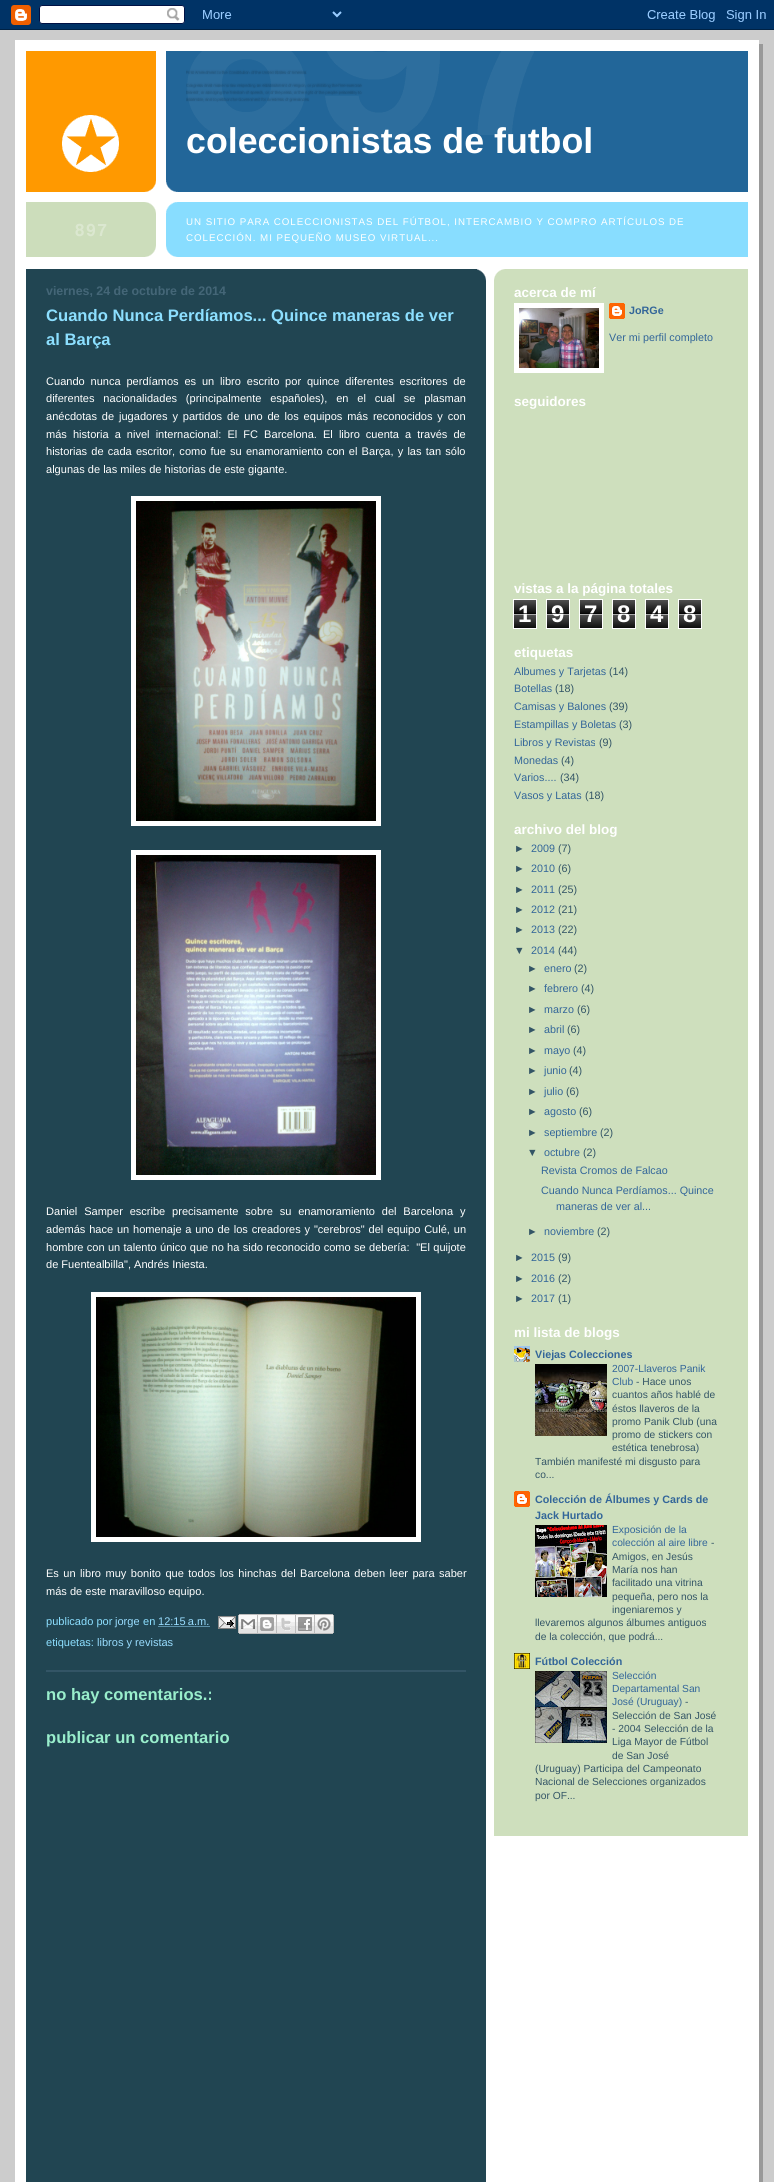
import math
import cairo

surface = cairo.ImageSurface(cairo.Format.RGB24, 774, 2182)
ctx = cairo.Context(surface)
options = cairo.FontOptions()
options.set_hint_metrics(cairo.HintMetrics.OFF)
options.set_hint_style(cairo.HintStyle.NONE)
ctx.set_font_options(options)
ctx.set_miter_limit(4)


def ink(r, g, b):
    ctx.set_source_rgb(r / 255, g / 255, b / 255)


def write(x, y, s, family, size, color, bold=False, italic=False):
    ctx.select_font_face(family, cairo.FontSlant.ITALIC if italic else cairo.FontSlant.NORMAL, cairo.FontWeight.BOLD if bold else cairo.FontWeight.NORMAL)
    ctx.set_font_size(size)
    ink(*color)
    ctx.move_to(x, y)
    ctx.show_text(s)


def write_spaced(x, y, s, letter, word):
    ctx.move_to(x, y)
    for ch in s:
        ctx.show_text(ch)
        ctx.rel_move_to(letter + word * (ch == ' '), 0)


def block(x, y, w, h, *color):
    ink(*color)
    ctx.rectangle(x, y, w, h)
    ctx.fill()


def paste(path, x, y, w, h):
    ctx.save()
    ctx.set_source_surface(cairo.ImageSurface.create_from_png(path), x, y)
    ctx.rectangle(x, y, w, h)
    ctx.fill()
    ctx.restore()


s1 = dict(family="Liberation Sans", size=35.75, color=(255, 255, 255), bold=True)
s2 = dict(family="Liberation Sans", size=12.4, color=(68, 102, 119), bold=True)
s3 = dict(family="Liberation Sans", size=16.6, color=(140, 223, 255), bold=True)
s4 = dict(family="Liberation Sans", size=11.05, color=(255, 255, 255))
s5 = dict(family="Liberation Sans", size=11.05, color=(140, 223, 255))
s6 = dict(family="Liberation Sans", size=11.05, color=(153, 221, 255))
s7 = dict(family="Liberation Sans", size=16.6, color=(153, 238, 204), bold=True)
s8 = dict(family="Liberation Sans", size=13.5, color=(255, 255, 255), bold=True)
s9 = dict(family="Liberation Sans", size=10.75, color=(51, 102, 153), bold=True)
s10 = dict(family="Liberation Sans", size=10.75, color=(51, 102, 153))
s11 = dict(family="Liberation Sans", size=24, color=(255, 255, 255), bold=True)
s12 = dict(family="Liberation Sans", size=10.75, color=(51, 85, 102))
s13 = dict(family="Liberation Sans", size=10.25, color=(51, 102, 153))
s14 = dict(family="Liberation Sans", size=10.25, color=(51, 85, 102))

ink(204, 204, 204)
ctx.paint()
paste("pic1.png", 0, 0, 774, 30)
block(759, 44, 4, 2138, 153, 153, 153)
block(15, 40, 744, 2142, 255, 255, 255)
block(166, 51, 582, 141, 34, 102, 153)
paste("pic2.png", 26, 51, 152, 141)
paste("pic3.png", 186, 51, 348, 89)
write(186, 153, "coleccionistas de futbol", **s1)
block(166, 202, 582, 55, 136, 221, 255)
paste("pic4.png", 26, 202, 152, 55)
paste("pic5.png", 145, 245, 33, 12)
paste("pic6.png", 75, 223, 32, 14)
ctx.select_font_face("Liberation Sans")
ctx.set_font_size(9.75)
ink(255, 255, 255)
write_spaced(186, 225, "UN SITIO PARA COLECCIONISTAS DEL FÚTBOL, INTERCAMBIO Y COMPRO ARTÍCULOS DE", 0.97, 0)
write_spaced(186, 241, "COLECCIÓN. MI PEQUEÑO MUSEO VIRTUAL...", 0.97, 0)
block(26, 269, 460, 1913, 33, 69, 82)
paste("pic7.png", 477, 269, 9, 12)
write(46, 295, "viernes, 24 de octubre de 2014", **s2)
write(46, 321, "Cuando Nunca Perdíamos... Quince maneras de ver", **s3)
write(46, 345, "al Barça", **s3)
ctx.select_font_face("Liberation Sans")
ctx.set_font_size(11.05)
ink(255, 255, 255)
write_spaced(46, 385, "Cuando nunca perdíamos es un libro escrito por quince diferentes escritores de", 0, 2.75)
write_spaced(46, 402, "diferentes nacionalidades (principalmente españoles), en el cual se plasman", 0, 5.75)
write_spaced(46, 420, "anécdotas de jugadores y partidos de uno de los equipos más reconocidos y con", 0, 1.8)
write_spaced(46, 438, "más historia a nivel internacional: El FC Barcelona. El libro cuenta a través de", 0, 3)
write_spaced(46, 455, "historias de cada escritor, como fue su enamoramiento con el Barça, y las tan sólo", 0, 1.1)
write(46, 473, "algunas de las miles de historias de este gigante.", **s4)
ctx.rectangle(133.5, 498.5, 245, 325)
ctx.set_line_width(5)
ctx.stroke()
paste("pic8.png", 136, 501, 240, 320)
ctx.rectangle(133.5, 852.5, 245, 325)
ctx.stroke()
paste("pic9.png", 136, 855, 240, 320)
write_spaced(46, 1215, "Daniel Samper escribe precisamente sobre su enamoramiento del Barcelona y", 0, 3.75)
write_spaced(46, 1233, "además hace un homenaje a uno de los creadores y \"cerebros\" del equipo Culé, un", 0, 0.75)
write_spaced(46, 1251, "hombre con un talento único que no ha sido reconocido como se debería:  \"El quijote", 0, 0.25)
write(46, 1268, "de Fuentealbilla\", Andrés Iniesta.", **s4)
ctx.rectangle(93.5, 1294.5, 325, 245)
ctx.stroke()
paste("pic10.png", 96, 1297, 320, 240)
write_spaced(46, 1577, "Es un libro muy bonito que todos los hinchas del Barcelona deben leer para saber", 0, 1.4)
write(46, 1595, "más de este maravilloso equipo.", **s4)
write(46, 1625, "publicado por", **s5)
write(115, 1625, "jorge", **s6)
write(143, 1625, "en", **s5)
write(158, 1625, "12:15 a.m.", **s6)
ctx.new_path()
ctx.move_to(158.5, 1626.5)
ctx.line_to(210, 1626.5)
ctx.set_line_width(1)
ctx.set_dash([1, 1])
ctx.stroke()
paste("pic11.png", 218, 1616, 18, 13)
paste("pic12.png", 238, 1614, 20, 20)
paste("pic13.png", 258, 1614, 19, 20)
paste("pic14.png", 277, 1614, 19, 20)
paste("pic15.png", 296, 1614, 19, 20)
paste("pic16.png", 315, 1614, 19, 20)
write(46, 1646, "etiquetas:", **s5)
write(97, 1646, "libros y revistas", **s6)
block(46, 1670, 420, 2, 51, 85, 102)
write(46, 1700, "no hay comentarios.:", **s7)
write(46, 1743, "publicar un comentario", **s7)
block(494, 269, 254, 1567, 206, 223, 189)
paste("pic17.png", 494, 269, 11, 11)
write(514, 297, "acerca de mí", **s8)
ctx.rectangle(516.5, 305.5, 85, 65)
ctx.set_line_width(5)
ctx.set_dash([])
ctx.stroke()
paste("pic18.png", 519, 308, 80, 60)
paste("pic19.png", 609, 303, 16, 16)
write(629, 314, "JoRGe", **s9)
write(609, 341, "Ver mi perfil completo", **s10)
write(514, 406, "seguidores", **s8)
write(514, 593, "vistas a la página totales", **s8)
paste("pic20.png", 514, 600, 22, 28)
ctx.rectangle(513.5, 599.5, 23, 29)
ctx.set_line_width(1)
ctx.stroke()
write(518, 622, "1", **s11)
ctx.set_source_rgba(0, 0, 0, 0.65)
ctx.rectangle(514, 613, 22, 1)
ctx.fill()
ctx.set_source_rgba(1, 1, 1, 0.65)
ctx.rectangle(514, 614, 22, 1)
ctx.fill()
paste("pic20.png", 547, 600, 22, 28)
ctx.rectangle(546.5, 599.5, 23, 29)
ink(255, 255, 255)
ctx.stroke()
write(551, 622, "9", **s11)
ctx.set_source_rgba(0, 0, 0, 0.65)
ctx.rectangle(547, 613, 22, 1)
ctx.fill()
ctx.set_source_rgba(1, 1, 1, 0.65)
ctx.rectangle(547, 614, 22, 1)
ctx.fill()
paste("pic20.png", 580, 600, 22, 28)
ctx.rectangle(579.5, 599.5, 23, 29)
ink(255, 255, 255)
ctx.stroke()
write(584, 622, "7", **s11)
ctx.set_source_rgba(0, 0, 0, 0.65)
ctx.rectangle(580, 613, 22, 1)
ctx.fill()
ctx.set_source_rgba(1, 1, 1, 0.65)
ctx.rectangle(580, 614, 22, 1)
ctx.fill()
paste("pic20.png", 613, 600, 22, 28)
ctx.rectangle(612.5, 599.5, 23, 29)
ink(255, 255, 255)
ctx.stroke()
write(617, 622, "8", **s11)
ctx.set_source_rgba(0, 0, 0, 0.65)
ctx.rectangle(613, 613, 22, 1)
ctx.fill()
ctx.set_source_rgba(1, 1, 1, 0.65)
ctx.rectangle(613, 614, 22, 1)
ctx.fill()
paste("pic20.png", 646, 600, 22, 28)
ctx.rectangle(645.5, 599.5, 23, 29)
ink(255, 255, 255)
ctx.stroke()
write(650, 622, "4", **s11)
ctx.set_source_rgba(0, 0, 0, 0.65)
ctx.rectangle(646, 613, 22, 1)
ctx.fill()
ctx.set_source_rgba(1, 1, 1, 0.65)
ctx.rectangle(646, 614, 22, 1)
ctx.fill()
paste("pic20.png", 679, 600, 22, 28)
ctx.rectangle(678.5, 599.5, 23, 29)
ink(255, 255, 255)
ctx.stroke()
write(683, 622, "8", **s11)
ctx.set_source_rgba(0, 0, 0, 0.65)
ctx.rectangle(679, 613, 22, 1)
ctx.fill()
ctx.set_source_rgba(1, 1, 1, 0.65)
ctx.rectangle(679, 614, 22, 1)
ctx.fill()
write(514, 657, "etiquetas", **s8)
write(514, 675, "Albumes y Tarjetas", **s10)
write(609, 675, "(14)", **s12)
write(514, 692, "Botellas", **s10)
write(555, 692, "(18)", **s12)
write(514, 710, "Camisas y Balones", **s10)
write(609, 710, "(39)", **s12)
write(514, 728, "Estampillas y Boletas", **s10)
write(619, 728, "(3)", **s12)
write(514, 746, "Libros y Revistas", **s10)
write(599, 746, "(9)", **s12)
write(514, 764, "Monedas", **s10)
write(561, 764, "(4)", **s12)
write(514, 781, "Varios....", **s10)
write(560, 781, "(34)", **s12)
write(514, 799, "Vasos y Latas", **s10)
write(585, 799, "(18)", **s12)
write(514, 834, "archivo del blog", **s8)
write(514, 852, "►", **s12)
write(531, 852, "2009", **s10)
write(558, 852, "(7)", **s12)
write(514, 872, "►", **s12)
write(531, 872, "2010", **s10)
write(558, 872, "(6)", **s12)
write(514, 893, "►", **s12)
write(531, 893, "2011", **s10)
write(558, 893, "(25)", **s12)
write(514, 913, "►", **s12)
write(531, 913, "2012", **s10)
write(558, 913, "(21)", **s12)
write(514, 933, "►", **s12)
write(531, 933, "2013", **s10)
write(558, 933, "(22)", **s12)
write(514, 954, "▼", **s12)
write(531, 954, "2014", **s10)
write(558, 954, "(44)", **s12)
write(527, 972, "►", **s12)
write(544, 972, "enero", **s10)
write(574, 972, "(2)", **s12)
write(527, 992, "►", **s12)
write(544, 992, "febrero", **s10)
write(581, 992, "(4)", **s12)
write(527, 1013, "►", **s12)
write(544, 1013, "marzo", **s10)
write(577, 1013, "(6)", **s12)
write(527, 1033, "►", **s12)
write(544, 1033, "abril", **s10)
write(567, 1033, "(6)", **s12)
write(527, 1054, "►", **s12)
write(544, 1054, "mayo", **s10)
write(573, 1054, "(4)", **s12)
write(527, 1074, "►", **s12)
write(544, 1074, "junio", **s10)
write(569, 1074, "(4)", **s12)
write(527, 1095, "►", **s12)
write(544, 1095, "julio", **s10)
write(566, 1095, "(6)", **s12)
write(527, 1115, "►", **s12)
write(544, 1115, "agosto", **s10)
write(579, 1115, "(6)", **s12)
write(527, 1136, "►", **s12)
write(544, 1136, "septiembre", **s10)
write(600, 1136, "(2)", **s12)
write(527, 1156, "▼", **s12)
write(544, 1156, "octubre", **s10)
write(583, 1156, "(2)", **s12)
write(541, 1174, "Revista Cromos de Falcao", **s10)
write(541, 1194, "Cuando Nunca Perdíamos... Quince", **s10)
write(556, 1210, "maneras de ver al...", **s10)
write(527, 1235, "►", **s12)
write(544, 1235, "noviembre", **s10)
write(597, 1235, "(2)", **s12)
write(514, 1261, "►", **s12)
write(531, 1261, "2015", **s10)
write(558, 1261, "(9)", **s12)
write(514, 1282, "►", **s12)
write(531, 1282, "2016", **s10)
write(558, 1282, "(2)", **s12)
write(514, 1302, "►", **s12)
write(531, 1302, "2017", **s10)
write(558, 1302, "(1)", **s12)
write(514, 1337, "mi lista de blogs", **s8)
paste("pic21.png", 514, 1346, 16, 16)
write(535, 1358, "Viejas Colecciones", **s9)
paste("pic22.png", 535, 1364, 72, 72)
write(612, 1372, "2007-Llaveros Panik", **s13)
write(612, 1385, "Club", **s13)
write(636, 1385, "- Hace unos", **s14)
write(612, 1398, "cuantos años hablé de", **s14)
write(612, 1412, "éstos llaveros de la", **s14)
write(612, 1425, "promo Panik Club (una", **s14)
write(612, 1438, "promo de stickers con", **s14)
write(612, 1451, "estética tenebrosa)", **s14)
write(535, 1465, "También manifesté mi disgusto para", **s14)
write(535, 1478, "co...", **s14)
paste("pic23.png", 514, 1491, 16, 16)
write(535, 1503, "Colección de Álbumes y Cards de", **s9)
write(535, 1519, "Jack Hurtado", **s9)
paste("pic24.png", 535, 1525, 72, 72)
write(612, 1533, "Exposición de la", **s13)
write(612, 1546, "colección al aire libre", **s13)
write(711, 1546, "-", **s14)
write(612, 1560, "Amigos, en Jesús", **s14)
write(612, 1573, "María nos han", **s14)
write(612, 1586, "facilitado una vitrina", **s14)
write(612, 1600, "pequeña, pero nos la", **s14)
write(612, 1613, "ingeniaremos y", **s14)
write(535, 1626, "llevaremos algunos álbumes antiguos", **s14)
write(535, 1640, "de la colección, que podrá...", **s14)
paste("pic25.png", 514, 1653, 16, 16)
write(535, 1665, "Fútbol Colección", **s9)
paste("pic26.png", 535, 1671, 72, 72)
write(612, 1679, "Selección", **s13)
write(612, 1692, "Departamental San", **s13)
write(612, 1705, "José (Uruguay)", **s13)
write(685, 1705, "-", **s14)
write(612, 1719, "Selección de San José", **s14)
write(612, 1732, "- 2004 Selección de la", **s14)
write(612, 1745, "Liga Mayor de Fútbol", **s14)
write(612, 1759, "de San José", **s14)
write(535, 1772, "(Uruguay) Participa del Campeonato", **s14)
write(535, 1785, "Nacional de Selecciones organizados", **s14)
write(535, 1799, "por OF...", **s14)
surface.write_to_png("screenshot.png")
